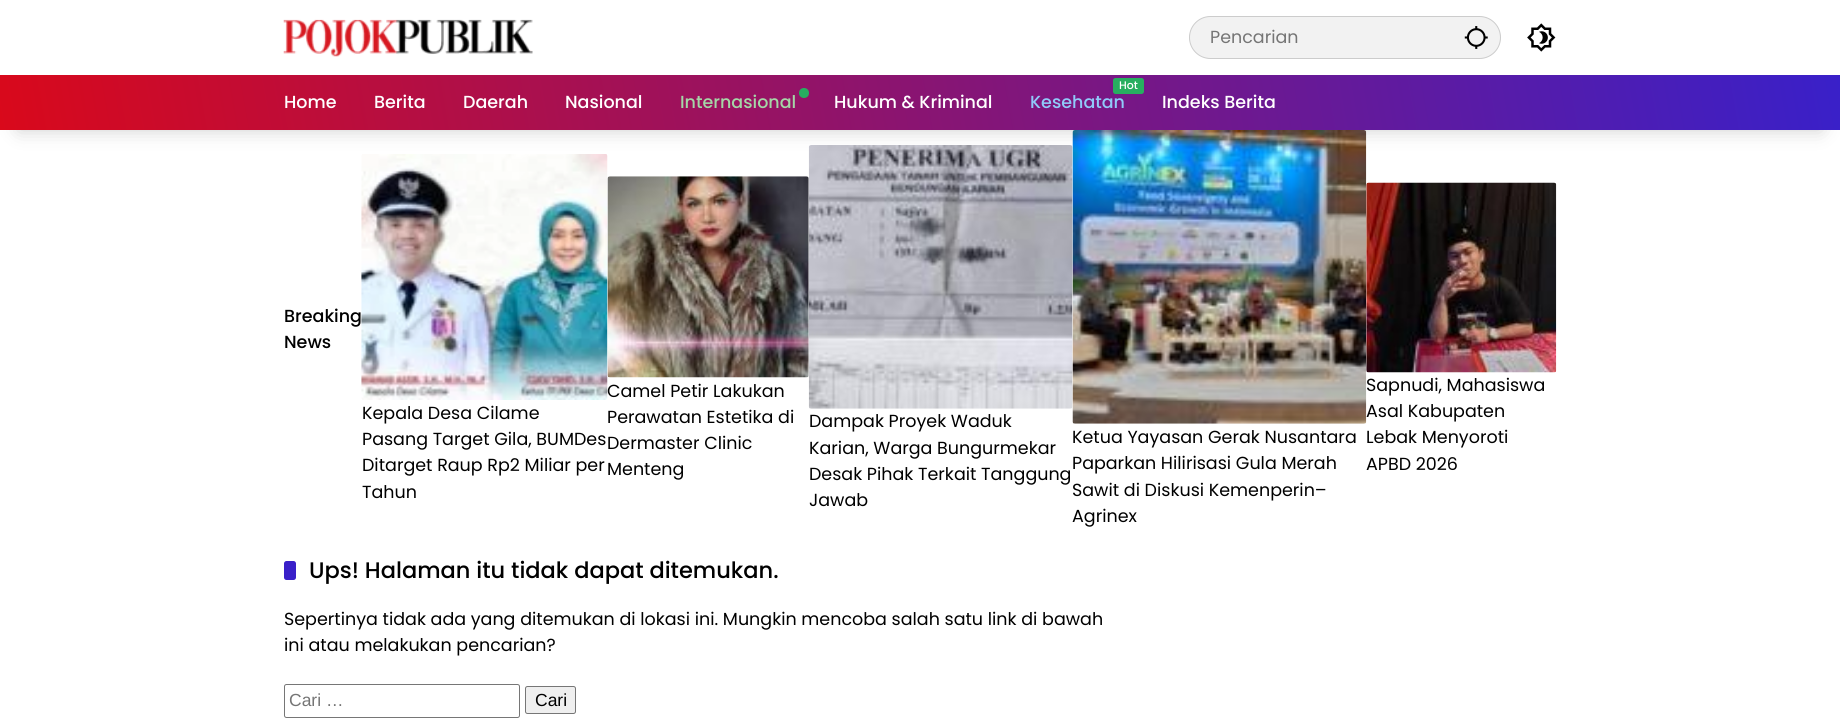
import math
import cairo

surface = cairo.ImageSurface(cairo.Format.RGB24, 1840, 728)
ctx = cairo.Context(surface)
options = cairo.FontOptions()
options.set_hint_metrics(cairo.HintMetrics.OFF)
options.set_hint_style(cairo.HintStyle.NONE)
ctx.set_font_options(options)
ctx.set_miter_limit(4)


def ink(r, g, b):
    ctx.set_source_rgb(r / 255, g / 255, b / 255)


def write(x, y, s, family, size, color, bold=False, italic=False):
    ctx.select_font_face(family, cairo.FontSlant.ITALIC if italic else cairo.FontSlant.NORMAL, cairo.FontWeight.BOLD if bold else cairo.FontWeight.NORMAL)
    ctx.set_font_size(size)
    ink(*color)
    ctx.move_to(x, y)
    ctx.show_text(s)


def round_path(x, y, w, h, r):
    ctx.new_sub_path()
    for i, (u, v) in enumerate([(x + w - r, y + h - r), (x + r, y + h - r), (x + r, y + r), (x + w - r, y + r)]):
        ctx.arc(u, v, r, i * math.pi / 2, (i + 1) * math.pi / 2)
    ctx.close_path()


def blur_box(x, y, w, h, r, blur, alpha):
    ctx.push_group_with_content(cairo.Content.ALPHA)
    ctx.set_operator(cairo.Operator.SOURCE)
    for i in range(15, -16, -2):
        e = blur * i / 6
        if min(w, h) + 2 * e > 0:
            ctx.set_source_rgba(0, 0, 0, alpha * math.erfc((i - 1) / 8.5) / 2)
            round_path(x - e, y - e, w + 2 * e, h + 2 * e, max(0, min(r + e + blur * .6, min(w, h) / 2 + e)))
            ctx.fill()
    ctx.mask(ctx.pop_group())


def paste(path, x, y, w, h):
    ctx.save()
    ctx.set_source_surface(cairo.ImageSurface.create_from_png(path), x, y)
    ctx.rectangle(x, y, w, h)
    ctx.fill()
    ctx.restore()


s1 = dict(family="Poppins", size=17.5, color=(117, 117, 117))
s2 = dict(family="Poppins Medium", size=17.5, color=(255, 255, 255))
s3 = dict(family="Poppins Medium", size=17.5, color=(165, 214, 167))
s4 = dict(family="Poppins Medium", size=11, color=(255, 255, 255))
s5 = dict(family="Poppins Medium", size=17.5, color=(144, 202, 249))
s6 = dict(family="Poppins Medium", size=17.5, color=(0, 0, 0))
s7 = dict(family="Poppins", size=17.5, color=(0, 0, 0))
s8 = dict(family="Poppins Medium", size=22.5, color=(0, 0, 0))
s9 = dict(family="Liberation Sans", size=17.5, color=(117, 117, 117))
s10 = dict(family="Liberation Sans", size=17.5, color=(0, 0, 0))

ink(255, 255, 255)
ctx.paint()
paste("pic1.png", 283, 19, 250, 38)
ink(242, 242, 242)
round_path(1189.5, 16.5, 311, 42, 21)
ctx.fill_preserve()
ink(204, 204, 204)
ctx.set_line_width(1)
ctx.stroke()
write(1210, 43, "Pencarian", **s1)
paste("pic2.png", 1464, 26, 24, 23)
paste("pic3.png", 1527, 23, 29, 29)
paste("pic4.png", 361, 154, 247, 246)
paste("pic5.png", 607, 176, 202, 202)
paste("pic6.png", 808, 145, 265, 264)
paste("pic7.png", 1072, 130, 295, 294)
ink(0, 0, 0)
blur_box(19, 113, 1802, 17, 0, 9.5, 0.2)
gradient = cairo.LinearGradient(23, 261, 1817, -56)
gradient.add_color_stop_rgba(0, 0.851, 0.035, 0.106, 1)
gradient.add_color_stop_rgba(1, 0.224, 0.125, 0.788, 1)
ctx.set_source(gradient)
ctx.rectangle(0, 75, 1840, 55)
ctx.fill()
write(284, 108, "Home", **s2)
write(374, 108, "Berita", **s2)
write(463, 108, "Daerah", **s2)
write(565, 108, "Nasional", **s2)
ink(39, 174, 96)
ctx.new_path()
ctx.arc(804, 93, 5, 0, 2 * math.pi)
ctx.fill()
write(680, 108, "Internasional", **s3)
write(834, 108, "Hukum & Kriminal", **s2)
ink(39, 174, 96)
round_path(1113, 78, 31, 16, 2.5)
ctx.fill()
write(1119, 89, "Hot", **s4)
write(1030, 108, "Kesehatan", **s5)
write(1162, 108, "Indeks Berita", **s2)
write(284, 322, "Breaking", **s6)
write(284, 348, "News", **s6)
write(362, 419, "Kepala Desa Cilame", **s7)
write(362, 445, "Pasang Target Gila, BUMDes", **s7)
write(362, 471, "Ditarget Raup Rp2 Miliar per", **s7)
write(362, 498, "Tahun", **s7)
write(607, 397, "Camel Petir Lakukan", **s7)
write(607, 423, "Perawatan Estetika di", **s7)
write(607, 449, "Dermaster Clinic", **s7)
write(607, 475, "Menteng", **s7)
write(809, 427, "Dampak Proyek Waduk", **s7)
write(809, 454, "Karian, Warga Bungurmekar", **s7)
write(809, 480, "Desak Pihak Terkait Tanggung", **s7)
write(809, 506, "Jawab", **s7)
write(1072, 443, "Ketua Yayasan Gerak Nusantara", **s7)
write(1072, 469, "Paparkan Hilirisasi Gula Merah", **s7)
write(1072, 496, "Sawit di Diskusi Kemenperin–", **s7)
write(1072, 522, "Agrinex", **s7)
paste("pic8.png", 1366, 182, 191, 191)
write(1366, 391, "Sapnudi, Mahasiswa", **s7)
write(1366, 417, "Asal Kabupaten", **s7)
write(1366, 443, "Lebak Menyoroti", **s7)
write(1366, 470, "APBD 2026", **s7)
ink(57, 32, 201)
round_path(284, 561, 12, 19, 2.5)
ctx.fill()
write(309, 578, "Ups! Halaman itu tidak dapat ditemukan.", **s8)
write(284, 625, "Sepertinya tidak ada yang ditemukan di lokasi ini. Mungkin mencoba salah satu link di bawah", **s7)
write(284, 651, "ini atau melakukan pencarian?", **s7)
round_path(284.5, 684.5, 235, 33, 2)
ink(118, 118, 118)
ctx.stroke()
write(289, 706, "Cari …", **s9)
ink(239, 239, 239)
round_path(525.5, 686.5, 50, 27, 2)
ctx.fill_preserve()
ink(118, 118, 118)
ctx.stroke()
write(535, 706, "Cari", **s10)
surface.write_to_png("screenshot.png")
